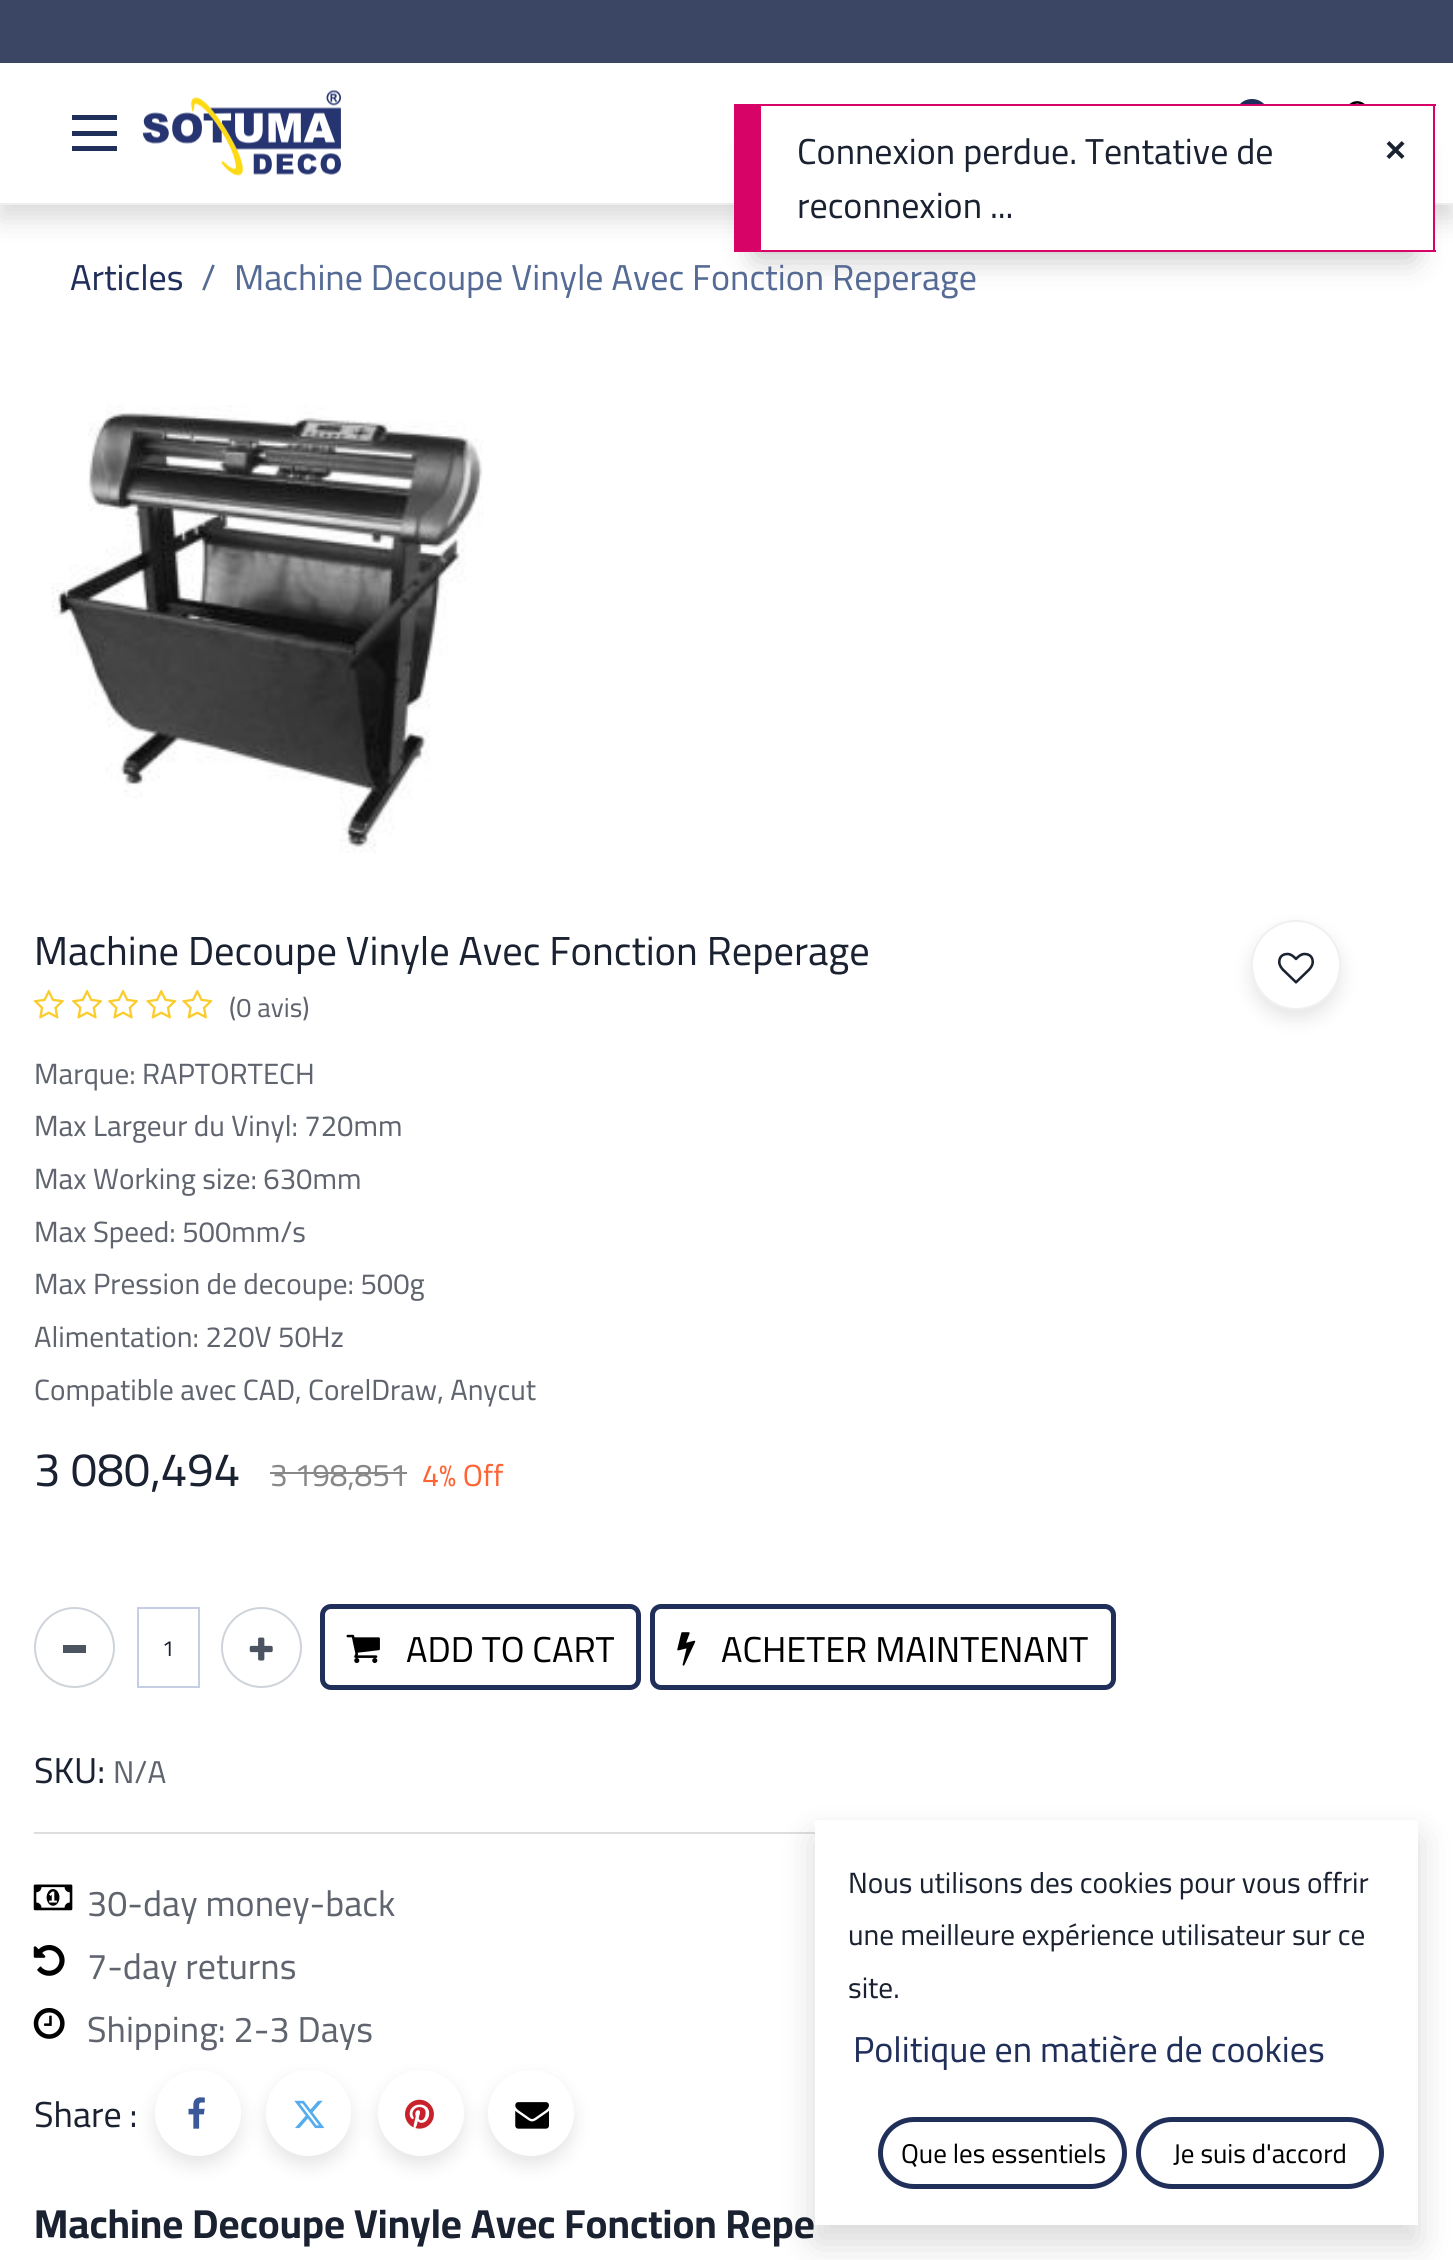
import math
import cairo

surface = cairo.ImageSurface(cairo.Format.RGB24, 1453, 2260)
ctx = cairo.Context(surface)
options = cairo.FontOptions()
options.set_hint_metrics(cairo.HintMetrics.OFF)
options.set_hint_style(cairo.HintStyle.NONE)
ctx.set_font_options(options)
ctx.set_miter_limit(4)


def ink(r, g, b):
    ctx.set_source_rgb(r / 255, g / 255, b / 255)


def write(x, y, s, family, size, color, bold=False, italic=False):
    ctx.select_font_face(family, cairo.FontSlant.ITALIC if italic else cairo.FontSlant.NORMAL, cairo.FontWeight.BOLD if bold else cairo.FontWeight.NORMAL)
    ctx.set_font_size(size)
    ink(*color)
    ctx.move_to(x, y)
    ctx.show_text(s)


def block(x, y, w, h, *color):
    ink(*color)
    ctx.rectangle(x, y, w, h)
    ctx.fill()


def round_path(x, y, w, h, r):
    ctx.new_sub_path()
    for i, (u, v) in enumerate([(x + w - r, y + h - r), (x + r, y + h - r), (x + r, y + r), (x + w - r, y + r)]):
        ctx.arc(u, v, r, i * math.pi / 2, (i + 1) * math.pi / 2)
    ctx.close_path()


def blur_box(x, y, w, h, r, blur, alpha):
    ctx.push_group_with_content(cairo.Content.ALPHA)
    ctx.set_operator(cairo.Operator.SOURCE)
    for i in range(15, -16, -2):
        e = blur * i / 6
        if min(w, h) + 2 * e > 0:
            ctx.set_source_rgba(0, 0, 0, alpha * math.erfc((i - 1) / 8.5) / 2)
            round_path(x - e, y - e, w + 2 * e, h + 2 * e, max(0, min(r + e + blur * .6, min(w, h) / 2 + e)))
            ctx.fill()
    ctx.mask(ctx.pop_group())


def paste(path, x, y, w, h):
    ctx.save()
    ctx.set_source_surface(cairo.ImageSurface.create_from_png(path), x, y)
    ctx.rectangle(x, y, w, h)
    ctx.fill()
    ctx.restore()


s1 = dict(family="Cairo", size=36, color=(26, 33, 48))
s2 = dict(family="Liberation Sans", size=36, color=(26, 33, 48), bold=True)
s3 = dict(family="Cairo", size=36, color=(32, 47, 90))
s4 = dict(family="Cairo", size=36, color=(85, 106, 148))
s5 = dict(family="Cairo", size=40.5, color=(26, 33, 48))
s6 = dict(family="Cairo", size=27, color=(95, 100, 110))
s7 = dict(family="Cairo", size=29.25, color=(95, 100, 110))
s8 = dict(family="Cairo", size=47.25, color=(26, 33, 48))
s9 = dict(family="Cairo", size=31.5, color=(136, 136, 136))
s10 = dict(family="Cairo", size=30.5, color=(255, 100, 53))
s11 = dict(family="Cairo", size=22, color=(26, 33, 48))
s12 = dict(family="Cairo", size=36, color=(0, 0, 0))
s13 = dict(family="Cairo", size=31.5, color=(95, 100, 110))
s14 = dict(family="Cairo", size=36, color=(95, 100, 110))
s15 = dict(family="Cairo", size=40.5, color=(26, 33, 48), bold=True)
s16 = dict(family="Cairo", size=29.25, color=(26, 33, 48))
s17 = dict(family="Cairo", size=27, color=(0, 0, 0))

ink(255, 255, 255)
ctx.paint()
ink(0, 0, 0)
blur_box(0, 14, 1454, 204, 0, 13.5, 0.15)
block(0, 63, 1453, 140, 255, 255, 255)
block(0, 203, 1453, 2, 238, 238, 238)
ink(32, 47, 90)
round_path(1235, 99, 34, 36, 17)
ctx.fill()
ink(0, 0, 0)
blur_box(756, 153, 657, 104, 0, 16, 0.25)
block(761, 106, 672, 144, 255, 255, 255)
block(761, 104, 675, 2, 216, 3, 103)
block(1433, 104, 2, 148, 216, 3, 103)
block(761, 250, 675, 2, 216, 3, 103)
block(734, 104, 27, 148, 216, 3, 103)
write(797, 164, "Connexion perdue. Tentative de", **s1)
write(797, 218, "reconnexion ...", **s1)
write(1385, 162, "×", **s2)
block(0, 0, 1453, 63, 59, 70, 100)
block(72, 115, 45, 5, 32, 47, 90)
block(72, 131, 45, 5, 32, 47, 90)
block(72, 146, 45, 5, 32, 47, 90)
paste("pic1.png", 142, 90, 199, 86)
paste("pic2.png", 1349, 101, 16, 3)
write(70, 290, "Articles", **s3)
write(201, 290, "/", **s4)
write(234, 290, "Machine Decoupe Vinyle Avec Fonction Reperage", **s4)
paste("pic3.png", 51, 405, 432, 448)
write(34, 965, "Machine Decoupe Vinyle Avec Fonction Reperage", **s5)
paste("pic4.png", 33, 989, 31, 30)
paste("pic5.png", 72, 989, 30, 30)
paste("pic5.png", 108, 989, 30, 30)
paste("pic6.png", 146, 989, 31, 30)
paste("pic6.png", 182, 989, 31, 30)
write(229, 1017, "(0 avis)", **s6)
write(34, 1084, "Marque: RAPTORTECH", **s7)
write(34, 1136, "Max Largeur du Vinyl: 720mm", **s7)
write(34, 1189, "Max Working size: 630mm", **s7)
write(34, 1242, "Max Speed: 500mm/s", **s7)
write(34, 1294, "Max Pression de decoupe: 500g", **s7)
write(34, 1347, "Alimentation: 220V 50Hz", **s7)
write(34, 1400, "Compatible avec CAD, CorelDraw, Anycut", **s7)
ink(0, 0, 0)
blur_box(1251, 929, 90, 90, 45, 9, 0.1)
ink(255, 255, 255)
ctx.arc(1296, 965, 44, 0, 2 * math.pi)
ctx.fill_preserve()
ink(240, 240, 240)
ctx.stroke()
paste("pic7.png", 1278, 952, 36, 32)
write(34, 1486, "3 080,494", **s8)
write(270, 1486, "3 198,851", **s9)
block(270, 1472, 137, 2, 136, 136, 136)
write(422, 1486, "4% Off", **s10)
ctx.new_path()
ctx.arc(74.5, 1647.5, 39.5, 0, 2 * math.pi)
ink(206, 212, 218)
ctx.stroke()
block(63, 1645, 23, 8, 76, 84, 98)
ctx.rectangle(138, 1608, 61, 79)
ink(197, 207, 227)
ctx.stroke()
write(162, 1656, "1", **s11)
ctx.new_path()
ctx.arc(261.5, 1647.5, 39.5, 0, 2 * math.pi)
ink(206, 212, 218)
ctx.stroke()
paste("pic8.png", 249, 1637, 24, 24)
round_path(322.5, 1606.5, 316, 81, 8.5)
ink(32, 47, 90)
ctx.set_line_width(5)
ctx.stroke()
paste("pic9.png", 346, 1634, 34, 30)
write(406, 1662, "ADD TO CART", **s12)
round_path(652.5, 1606.5, 461, 81, 8.5)
ink(32, 47, 90)
ctx.stroke()
paste("pic10.png", 677, 1632, 19, 34)
write(721, 1662, "ACHETER MAINTENANT", **s12)
write(34, 1783, "SKU:", **s1)
write(113, 1783, "N/A", **s13)
block(34, 1832, 781, 2, 221, 222, 224)
paste("pic11.png", 33, 1884, 40, 27)
write(87, 1916, "30-day money-back", **s14)
paste("pic12.png", 33, 1945, 32, 31)
write(87, 1979, "7-day returns", **s14)
paste("pic13.png", 33, 2008, 32, 31)
write(87, 2042, "Shipping: 2-3 Days", **s14)
write(34, 2127, "Share :", **s1)
ink(0, 0, 0)
blur_box(155, 2079, 86, 86, 43, 9, 0.1)
ink(255, 255, 255)
ctx.arc(198, 2113, 43, 0, 2 * math.pi)
ctx.fill()
paste("pic14.png", 188, 2097, 17, 32)
ink(0, 0, 0)
blur_box(266, 2079, 85, 86, 42.5, 9, 0.1)
ink(255, 255, 255)
round_path(266, 2070, 85, 86, 42.5)
ctx.fill()
paste("pic15.png", 294, 2100, 31, 29)
ink(0, 0, 0)
blur_box(378, 2079, 86, 86, 43, 9, 0.1)
ink(255, 255, 255)
ctx.arc(421, 2113, 43, 0, 2 * math.pi)
ctx.fill()
paste("pic16.png", 405, 2099, 29, 30)
ink(0, 0, 0)
blur_box(488, 2079, 86, 86, 43, 9, 0.1)
ink(255, 255, 255)
ctx.arc(531, 2113, 43, 0, 2 * math.pi)
ctx.fill()
paste("pic17.png", 515, 2102, 34, 27)
write(34, 2238, "Machine Decoupe Vinyle Avec Fonction Repe", **s15)
ink(0, 0, 0)
blur_box(815, 1838, 603, 405, 0, 18, 0.15)
block(815, 1820, 603, 405, 255, 255, 255)
write(848, 1893, "Nous utilisons des cookies pour vous offrir", **s16)
write(848, 1945, "une meilleure expérience utilisateur sur ce", **s16)
write(848, 1998, "site.", **s16)
write(853, 2062, "Politique en matière de cookies", **s3)
round_path(880.5, 2119.5, 244, 67, 33.5)
ctx.stroke()
write(901, 2163, "Que les essentiels", **s17)
round_path(1138.5, 2119.5, 243, 67, 33.5)
ink(32, 47, 90)
ctx.stroke()
write(1173, 2163, "Je suis d'accord", **s17)
surface.write_to_png("screenshot.png")
